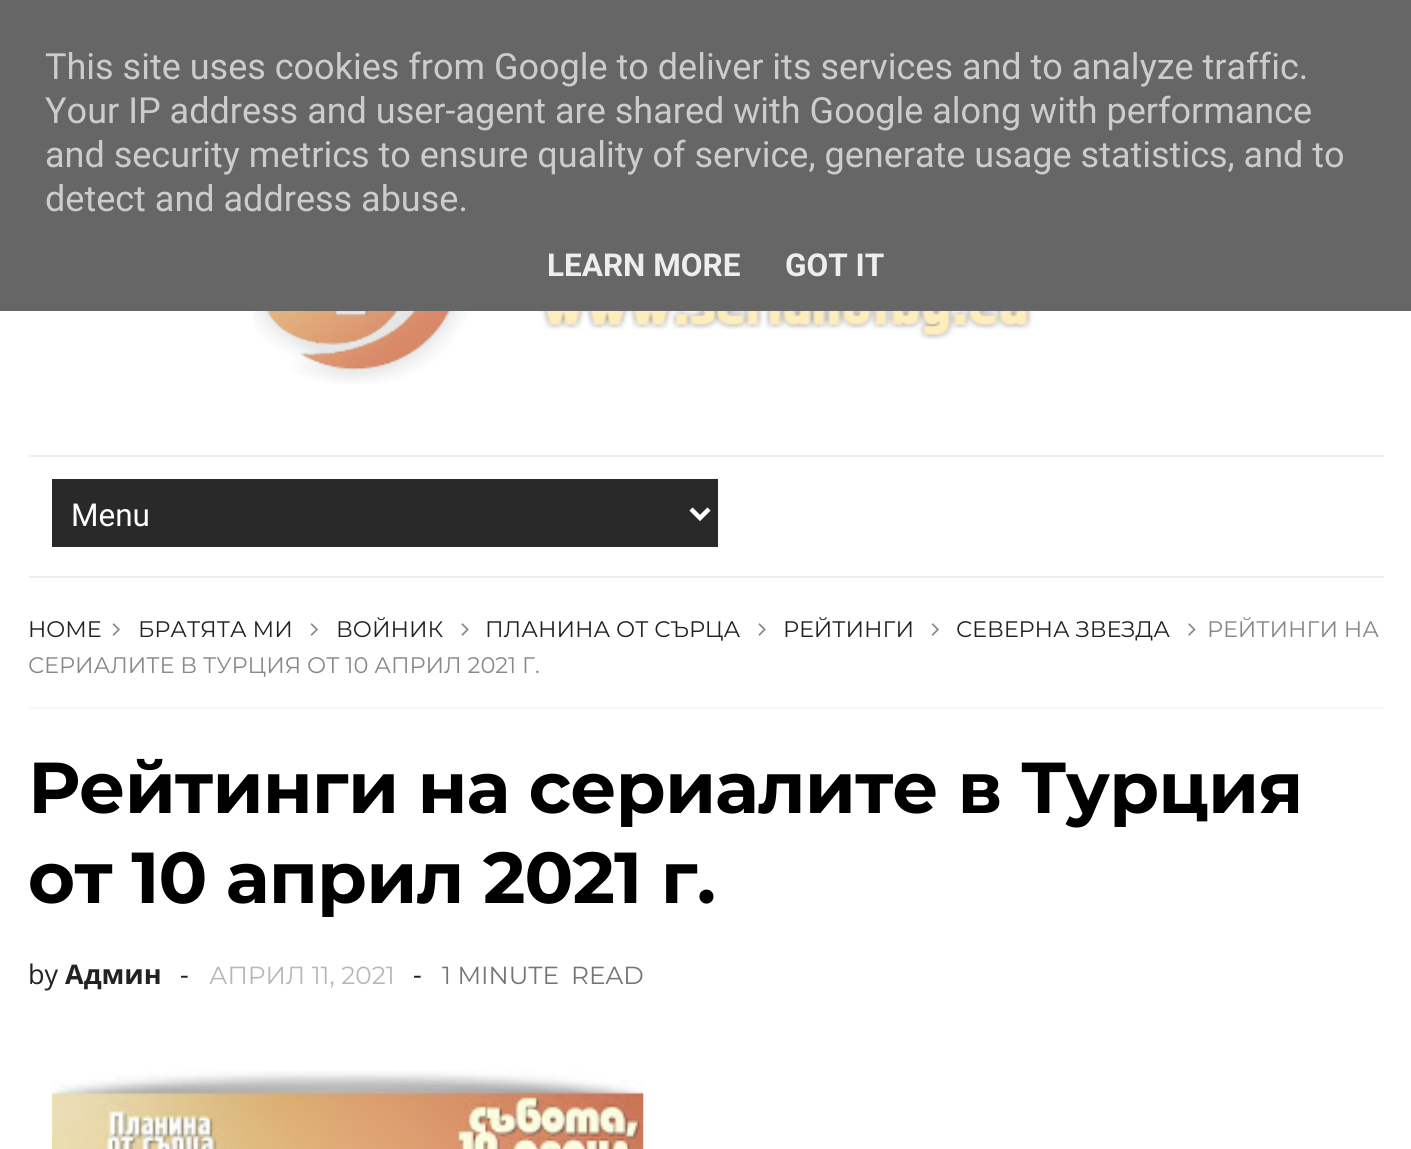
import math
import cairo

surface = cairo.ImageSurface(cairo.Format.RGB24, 1411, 1149)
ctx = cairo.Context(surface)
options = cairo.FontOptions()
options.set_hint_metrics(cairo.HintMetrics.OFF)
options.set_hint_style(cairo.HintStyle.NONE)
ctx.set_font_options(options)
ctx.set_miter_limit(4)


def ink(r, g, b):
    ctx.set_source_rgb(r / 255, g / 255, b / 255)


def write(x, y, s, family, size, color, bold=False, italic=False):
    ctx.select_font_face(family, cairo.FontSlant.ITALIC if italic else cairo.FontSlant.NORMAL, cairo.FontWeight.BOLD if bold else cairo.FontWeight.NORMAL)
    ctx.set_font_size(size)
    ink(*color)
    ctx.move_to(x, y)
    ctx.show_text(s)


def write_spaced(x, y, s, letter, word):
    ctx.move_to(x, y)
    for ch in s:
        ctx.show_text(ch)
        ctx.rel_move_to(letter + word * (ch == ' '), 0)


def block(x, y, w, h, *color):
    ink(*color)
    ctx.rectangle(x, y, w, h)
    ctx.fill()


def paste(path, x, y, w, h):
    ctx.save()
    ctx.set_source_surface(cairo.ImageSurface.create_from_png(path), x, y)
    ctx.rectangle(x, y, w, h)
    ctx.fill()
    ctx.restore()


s1 = dict(family="Roboto", size=36, color=(204, 204, 204))
s2 = dict(family="Roboto", size=31.5, color=(238, 238, 238), bold=True)
s3 = dict(family="Roboto", size=31.5, color=(255, 255, 255))
s4 = dict(family="Montserrat", size=22.5, color=(34, 34, 34))
s5 = dict(family="Montserrat", size=22.5, color=(136, 136, 136))
s6 = dict(family="Open Sans", size=27, color=(34, 34, 34))
s7 = dict(family="Open Sans", size=27, color=(34, 34, 34), bold=True)
s8 = dict(family="Montserrat", size=24.75, color=(183, 183, 183))
s9 = dict(family="Montserrat", size=24.75, color=(117, 117, 117))

ink(255, 255, 255)
ctx.paint()
block(0, 0, 1411, 311, 102, 102, 102)
write(45, 79, "This site uses cookies from Google to deliver its services and to analyze traffic.", **s1)
write(45, 123, "Your IP address and user-agent are shared with Google along with performance", **s1)
write(45, 167, "and security metrics to ensure quality of service, generate usage statistics, and to", **s1)
write(45, 211, "detect and address abuse.", **s1)
write(547, 276, "LEARN MORE", **s2)
write(785, 276, "GOT IT", **s2)
paste("pic1.png", 252, 311, 781, 73)
block(29, 455, 1355, 2, 238, 238, 238)
block(29, 576, 1355, 2, 238, 238, 238)
block(52, 479, 666, 68, 41, 41, 41)
ctx.new_path()
ctx.move_to(691, 509)
ctx.line_to(700, 518)
ctx.line_to(709, 509)
ink(255, 255, 255)
ctx.set_line_width(4.5)
ctx.stroke()
write(71, 526, "Menu", **s3)
write(28, 637, "HOME", **s4)
paste("pic2.png", 112, 623, 8, 13)
write(138, 637, "БРАТЯТА МИ", **s4)
paste("pic2.png", 310, 623, 8, 13)
write(336, 637, "ВОЙНИК", **s4)
paste("pic3.png", 461, 623, 8, 13)
write(485, 637, "ПЛАНИНА ОТ СЪРЦА", **s4)
paste("pic3.png", 758, 623, 8, 13)
write(783, 637, "РЕЙТИНГИ", **s4)
paste("pic2.png", 931, 623, 8, 13)
write(956, 637, "СЕВЕРНА ЗВЕЗДА", **s4)
paste("pic4.png", 1188, 623, 8, 13)
write(1207, 637, "РЕЙТИНГИ НА", **s5)
write(28, 673, "СЕРИАЛИТЕ В ТУРЦИЯ ОТ 10 АПРИЛ 2021 Г.", **s5)
block(29, 707, 1355, 2, 248, 248, 248)
ctx.select_font_face("Montserrat", cairo.FontSlant.NORMAL, cairo.FontWeight.BOLD)
ctx.set_font_size(72)
ink(0, 0, 0)
write_spaced(28, 813, "Рейтинги на сериалите в Турция", -0.9, 0)
write_spaced(28, 903, "от 10 април 2021 г.", -0.9, 0)
write(28, 984, "by", **s6)
write(65, 984, "Админ", **s7)
write(180, 984, "-", **s6)
write(209, 984, "АПРИЛ 11, 2021", **s8)
write(413, 984, "-", **s6)
write(442, 984, "1 MINUTE", **s9)
write(571, 984, "READ", **s9)
paste("pic5.png", 51, 1070, 593, 79)
surface.write_to_png("screenshot.png")
